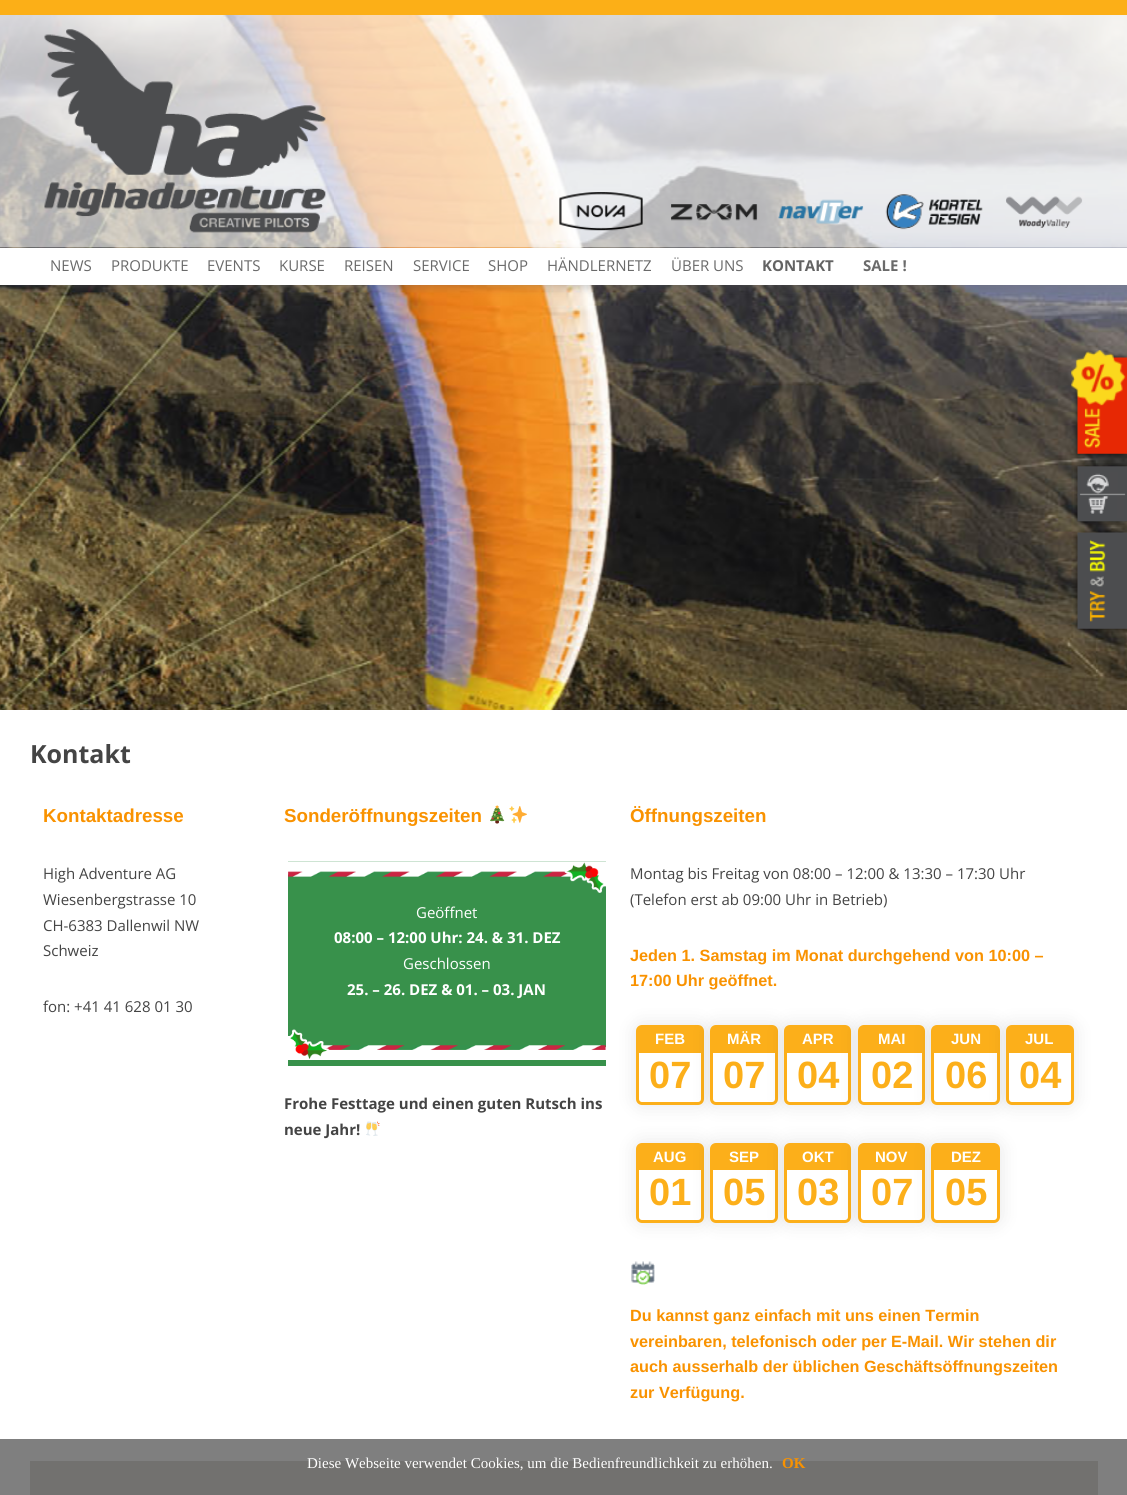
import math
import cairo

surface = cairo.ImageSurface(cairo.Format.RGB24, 1127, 1495)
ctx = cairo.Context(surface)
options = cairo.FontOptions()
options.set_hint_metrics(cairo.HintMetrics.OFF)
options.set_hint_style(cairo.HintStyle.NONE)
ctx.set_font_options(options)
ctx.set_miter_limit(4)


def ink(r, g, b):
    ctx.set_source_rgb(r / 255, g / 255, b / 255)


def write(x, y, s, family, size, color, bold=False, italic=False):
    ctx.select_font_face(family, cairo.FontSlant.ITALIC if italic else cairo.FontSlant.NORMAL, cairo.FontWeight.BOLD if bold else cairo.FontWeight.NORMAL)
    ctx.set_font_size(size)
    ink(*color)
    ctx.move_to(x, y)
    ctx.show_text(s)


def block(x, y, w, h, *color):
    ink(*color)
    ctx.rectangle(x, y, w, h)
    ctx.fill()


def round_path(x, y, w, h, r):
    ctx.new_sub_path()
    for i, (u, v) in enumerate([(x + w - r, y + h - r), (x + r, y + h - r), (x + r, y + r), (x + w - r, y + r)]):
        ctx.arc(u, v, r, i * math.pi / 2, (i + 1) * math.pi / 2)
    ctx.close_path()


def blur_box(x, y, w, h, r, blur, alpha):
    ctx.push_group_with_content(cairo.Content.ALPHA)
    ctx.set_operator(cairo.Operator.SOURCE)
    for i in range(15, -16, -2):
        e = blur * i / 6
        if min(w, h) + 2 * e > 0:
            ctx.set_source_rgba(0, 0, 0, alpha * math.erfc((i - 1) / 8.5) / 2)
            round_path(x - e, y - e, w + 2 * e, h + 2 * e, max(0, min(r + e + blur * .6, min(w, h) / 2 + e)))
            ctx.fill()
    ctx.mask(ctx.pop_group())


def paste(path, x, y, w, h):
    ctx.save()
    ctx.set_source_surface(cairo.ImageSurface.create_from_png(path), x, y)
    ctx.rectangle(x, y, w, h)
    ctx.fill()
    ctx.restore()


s1 = dict(family="Open Sans", size=15, color=(106, 106, 106))
s2 = dict(family="Open Sans", size=15, color=(99, 99, 99), bold=True)
s3 = dict(family="Open Sans", size=15, color=(106, 106, 106), bold=True)
s4 = dict(family="Open Sans", size=25, color=(68, 68, 68), bold=True)
s5 = dict(family="Liberation Sans", size=18.75, color=(249, 146, 0), bold=True)
s6 = dict(family="Open Sans", size=15, color=(68, 68, 68))
s7 = dict(family="Open Sans", size=15, color=(255, 255, 255))
s8 = dict(family="Open Sans", size=15, color=(255, 255, 255), bold=True)
s9 = dict(family="Open Sans", size=15, color=(68, 68, 68), bold=True)
s10 = dict(family="Liberation Sans", size=16.25, color=(249, 146, 0), bold=True)
s11 = dict(family="Liberation Sans", size=15, color=(255, 255, 255), bold=True)
s12 = dict(family="Liberation Sans", size=38, color=(252, 175, 26), bold=True)
s13 = dict(family="Liberation Serif", size=15, color=(255, 255, 255))
s14 = dict(family="Liberation Serif", size=15, color=(249, 146, 0), bold=True)

ink(255, 255, 255)
ctx.paint()
paste("pic1.png", 0, 15, 1127, 695)
block(0, 0, 1127, 15, 252, 175, 23)
ink(100, 100, 100)
blur_box(0, 250, 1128, 38, 0, 4, 0.3)
paste("pic2.png", 0, 15, 1127, 233)
block(0, 248, 1127, 37, 255, 255, 255)
write(50, 271, "NEWS", **s1)
write(111, 271, "PRODUKTE", **s1)
write(207, 271, "EVENTS", **s1)
write(279, 271, "KURSE", **s1)
write(344, 271, "REISEN", **s1)
write(413, 271, "SERVICE", **s1)
write(488, 271, "SHOP", **s1)
write(547, 271, "HÄNDLERNETZ", **s1)
write(671, 271, "ÜBER UNS", **s1)
write(762, 271, "KONTAKT", **s2)
write(863, 271, "SALE !", **s3)
paste("pic3.png", 1071, 350, 56, 108)
paste("pic4.png", 1074, 463, 53, 34)
paste("pic5.png", 1074, 493, 53, 32)
paste("pic6.png", 1073, 528, 54, 105)
write(30, 763, "Kontakt", **s4)
write(43, 822, "Kontaktadresse", **s5)
write(43, 879, "High Adventure AG", **s6)
write(43, 905, "Wiesenbergstrasse 10", **s6)
write(43, 931, "CH-6383 Dallenwil NW", **s6)
write(43, 956, "Schweiz", **s6)
write(43, 1012, "fon: +41 41 628 01 30", **s6)
write(284, 822, "Sonderöffnungszeiten", **s5)
paste("pic7.png", 490, 805, 15, 19)
paste("pic8.png", 509, 806, 18, 18)
block(288, 861, 318, 205, 56, 145, 75)
paste("pic9.png", 288, 861, 318, 32)
write(416, 918, "Geöffnet", **s7)
write(334, 943, "08:00 – 12:00 Uhr: 24. & 31. DEZ", **s8)
write(403, 969, "Geschlossen", **s7)
write(347, 995, "25. – 26. DEZ & 01. – 03. JAN", **s8)
paste("pic10.png", 288, 1029, 318, 31)
write(284, 1109, "Frohe Festtage und einen guten Rutsch ins", **s9)
write(284, 1135, "neue Jahr!", **s9)
paste("pic11.png", 366, 1121, 14, 15)
write(630, 822, "Öffnungszeiten", **s5)
write(630, 879, "Montag bis Freitag von 08:00 – 12:00 & 13:30 – 17:30 Uhr", **s6)
write(630, 905, "(Telefon erst ab 09:00 Uhr in Betrieb)", **s6)
write(630, 961, "Jeden 1. Samstag im Monat durchgehend von 10:00 –", **s10)
write(630, 986, "17:00 Uhr geöffnet.", **s10)
ink(0, 0, 0)
blur_box(636, 1025, 68, 80, 6, 9.5, 0.1)
ink(255, 255, 255)
round_path(637.5, 1026.5, 65, 77, 4.5)
ctx.fill_preserve()
ink(252, 175, 26)
ctx.set_line_width(3)
ctx.stroke()
block(639, 1028, 62, 25, 252, 175, 26)
write(655, 1044, "FEB", **s11)
write(649, 1088, "07", **s12)
ink(0, 0, 0)
blur_box(710, 1025, 68, 80, 6, 9.5, 0.1)
ink(255, 255, 255)
round_path(711.5, 1026.5, 65, 77, 4.5)
ctx.fill_preserve()
ink(252, 175, 26)
ctx.stroke()
block(713, 1028, 62, 25, 252, 175, 26)
write(727, 1044, "MÄR", **s11)
write(723, 1088, "07", **s12)
ink(0, 0, 0)
blur_box(784, 1025, 67, 80, 6, 9.5, 0.1)
ink(255, 255, 255)
round_path(785.5, 1026.5, 64, 77, 4.5)
ctx.fill_preserve()
ink(252, 175, 26)
ctx.stroke()
block(787, 1028, 61, 25, 252, 175, 26)
write(802, 1044, "APR", **s11)
write(797, 1088, "04", **s12)
ink(0, 0, 0)
blur_box(858, 1025, 67, 80, 6, 9.5, 0.1)
ink(255, 255, 255)
round_path(859.5, 1026.5, 64, 77, 4.5)
ctx.fill_preserve()
ink(252, 175, 26)
ctx.stroke()
block(861, 1028, 61, 25, 252, 175, 26)
write(878, 1044, "MAI", **s11)
write(871, 1088, "02", **s12)
ink(0, 0, 0)
blur_box(931, 1025, 69, 80, 6, 9.5, 0.1)
ink(255, 255, 255)
round_path(932.5, 1026.5, 66, 77, 4.5)
ctx.fill_preserve()
ink(252, 175, 26)
ctx.stroke()
block(934, 1028, 63, 25, 252, 175, 26)
write(951, 1044, "JUN", **s11)
write(945, 1088, "06", **s12)
ink(0, 0, 0)
blur_box(1006, 1025, 68, 80, 6, 9.5, 0.1)
ink(255, 255, 255)
round_path(1007.5, 1026.5, 65, 77, 4.5)
ctx.fill_preserve()
ink(252, 175, 26)
ctx.stroke()
block(1009, 1028, 62, 25, 252, 175, 26)
write(1025, 1044, "JUL", **s11)
write(1019, 1088, "04", **s12)
ink(0, 0, 0)
blur_box(636, 1143, 68, 80, 6, 9.5, 0.1)
ink(255, 255, 255)
round_path(637.5, 1144.5, 65, 77, 4.5)
ctx.fill_preserve()
ink(252, 175, 26)
ctx.stroke()
block(639, 1146, 62, 24, 252, 175, 26)
write(653, 1162, "AUG", **s11)
write(649, 1205, "01", **s12)
ink(0, 0, 0)
blur_box(710, 1143, 68, 80, 6, 9.5, 0.1)
ink(255, 255, 255)
round_path(711.5, 1144.5, 65, 77, 4.5)
ctx.fill_preserve()
ink(252, 175, 26)
ctx.stroke()
block(713, 1146, 62, 24, 252, 175, 26)
write(729, 1162, "SEP", **s11)
write(723, 1205, "05", **s12)
ink(0, 0, 0)
blur_box(784, 1143, 67, 80, 6, 9.5, 0.1)
ink(255, 255, 255)
round_path(785.5, 1144.5, 64, 77, 4.5)
ctx.fill_preserve()
ink(252, 175, 26)
ctx.stroke()
block(787, 1146, 61, 24, 252, 175, 26)
write(802, 1162, "OKT", **s11)
write(797, 1205, "03", **s12)
ink(0, 0, 0)
blur_box(858, 1143, 67, 80, 6, 9.5, 0.1)
ink(255, 255, 255)
round_path(859.5, 1144.5, 64, 77, 4.5)
ctx.fill_preserve()
ink(252, 175, 26)
ctx.stroke()
block(861, 1146, 61, 24, 252, 175, 26)
write(875, 1162, "NOV", **s11)
write(871, 1205, "07", **s12)
ink(0, 0, 0)
blur_box(931, 1143, 69, 80, 6, 9.5, 0.1)
ink(255, 255, 255)
round_path(932.5, 1144.5, 66, 77, 4.5)
ctx.fill_preserve()
ink(252, 175, 26)
ctx.stroke()
block(934, 1146, 63, 24, 252, 175, 26)
write(951, 1162, "DEZ", **s11)
write(945, 1205, "05", **s12)
paste("pic12.png", 631, 1261, 24, 24)
write(630, 1321, "Du kannst ganz einfach mit uns einen Termin", **s10)
write(630, 1347, "vereinbaren, telefonisch oder per E-Mail. Wir stehen dir", **s10)
write(630, 1372, "auch ausserhalb der üblichen Geschäftsöffnungszeiten", **s10)
write(630, 1398, "zur Verfügung.", **s10)
block(30, 1461, 1068, 34, 229, 227, 223)
ctx.set_source_rgba(0, 0, 0, 0.5)
ctx.rectangle(0, 1439, 1127, 56)
ctx.fill()
write(307, 1468, "Diese Webseite verwendet Cookies, um die Bedienfreundlichkeit zu erhöhen.", **s13)
write(782, 1468, "OK", **s14)
surface.write_to_png("screenshot.png")
